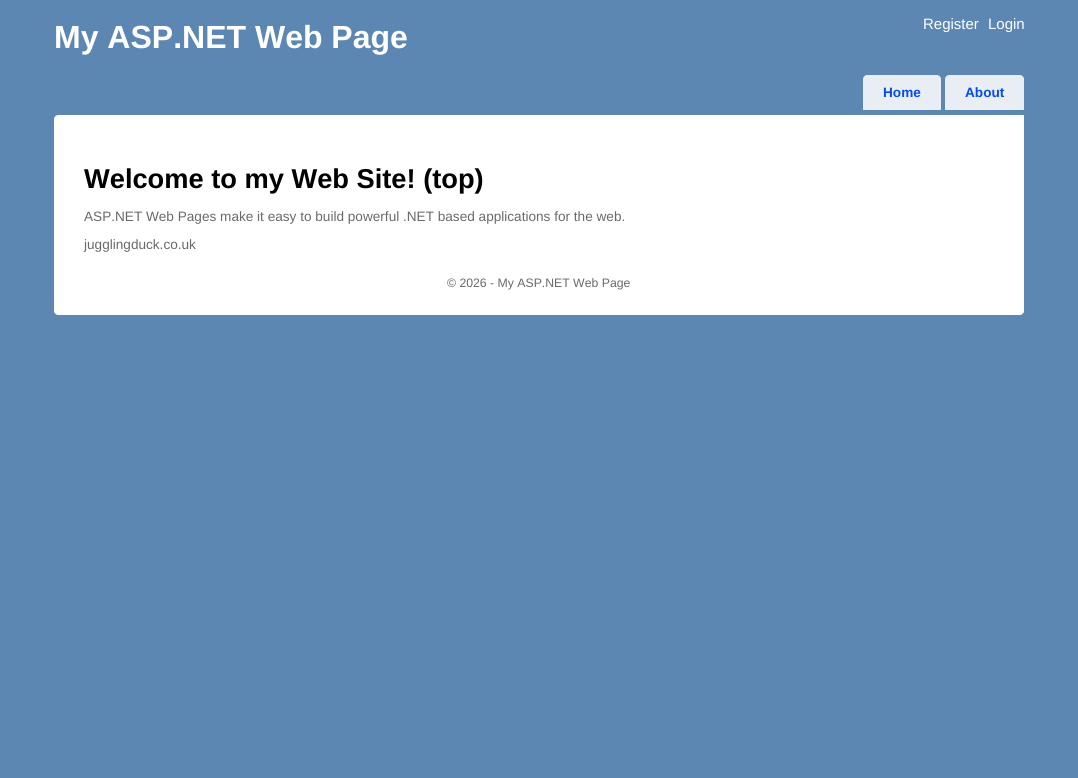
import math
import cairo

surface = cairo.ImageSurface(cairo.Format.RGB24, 1078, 778)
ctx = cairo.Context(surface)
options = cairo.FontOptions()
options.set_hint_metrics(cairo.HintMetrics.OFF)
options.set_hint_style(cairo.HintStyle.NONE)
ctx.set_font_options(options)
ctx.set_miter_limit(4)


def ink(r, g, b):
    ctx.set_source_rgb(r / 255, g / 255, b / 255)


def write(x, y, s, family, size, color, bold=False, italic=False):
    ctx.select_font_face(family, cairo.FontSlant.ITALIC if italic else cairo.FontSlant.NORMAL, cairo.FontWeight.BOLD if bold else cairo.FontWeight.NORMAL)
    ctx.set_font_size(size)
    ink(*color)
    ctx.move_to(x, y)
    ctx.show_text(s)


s1 = dict(family="Liberation Sans", size=32, color=(255, 255, 255), bold=True)
s2 = dict(family="Liberation Sans", size=15, color=(255, 255, 255))
s3 = dict(family="Liberation Sans", size=13.6, color=(3, 74, 243), bold=True)
s4 = dict(family="Liberation Sans", size=27.25, color=(0, 0, 0), bold=True)
s5 = dict(family="Liberation Sans", size=13.6, color=(105, 105, 105))
s6 = dict(family="Liberation Sans", size=12.25, color=(105, 105, 105))

ink(92, 135, 178)
ctx.paint()
write(54, 48, "My ASP.NET Web Page", **s1)
write(923, 29, "Register", **s2)
write(988, 29, "Login", **s2)
ink(232, 238, 244)
ctx.new_path()
ctx.move_to(867, 75)
ctx.line_to(937, 75)
ctx.curve_to(939, 75, 941, 77, 941, 79)
ctx.line_to(941, 110)
ctx.line_to(863, 110)
ctx.line_to(863, 79)
ctx.curve_to(863, 77, 865, 75, 867, 75)
ctx.close_path()
ctx.fill()
write(883, 97, "Home", **s3)
ink(232, 238, 244)
ctx.new_path()
ctx.move_to(949, 75)
ctx.line_to(1020, 75)
ctx.curve_to(1022, 75, 1024, 77, 1024, 79)
ctx.line_to(1024, 110)
ctx.line_to(945, 110)
ctx.line_to(945, 79)
ctx.curve_to(945, 77, 947, 75, 949, 75)
ctx.close_path()
ctx.fill()
write(965, 97, "About", **s3)
ink(255, 255, 255)
ctx.new_path()
ctx.move_to(58, 115)
ctx.line_to(1024, 115)
ctx.line_to(1024, 311)
ctx.curve_to(1024, 313, 1022, 315, 1020, 315)
ctx.line_to(58, 315)
ctx.curve_to(56, 315, 54, 313, 54, 311)
ctx.line_to(54, 119)
ctx.curve_to(54, 117, 56, 115, 58, 115)
ctx.close_path()
ctx.fill()
write(84, 188, "Welcome to my Web Site! (top)", **s4)
write(84, 221, "ASP.NET Web Pages make it easy to build powerful .NET based applications for the web.", **s5)
write(84, 249, "jugglingduck.co.uk", **s5)
write(447, 287, "© 2026 - My ASP.NET Web Page", **s6)
surface.write_to_png("screenshot.png")
